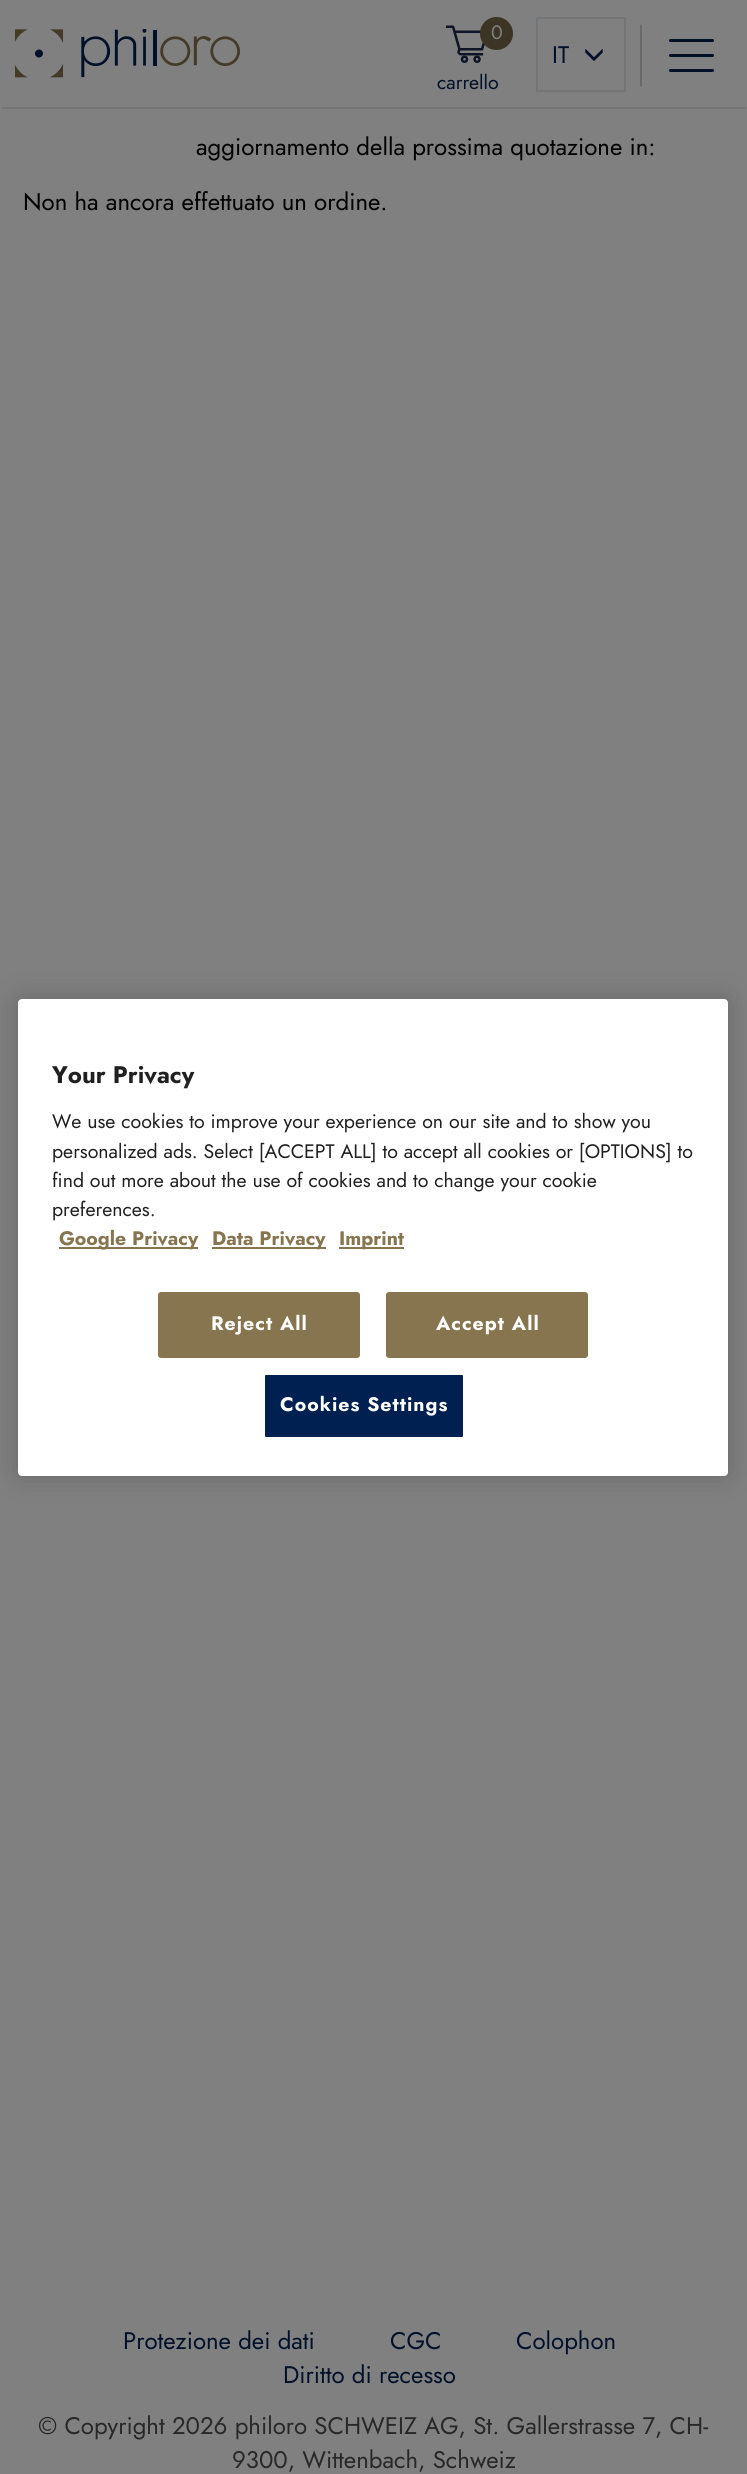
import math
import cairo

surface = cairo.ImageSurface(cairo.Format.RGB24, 747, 2474)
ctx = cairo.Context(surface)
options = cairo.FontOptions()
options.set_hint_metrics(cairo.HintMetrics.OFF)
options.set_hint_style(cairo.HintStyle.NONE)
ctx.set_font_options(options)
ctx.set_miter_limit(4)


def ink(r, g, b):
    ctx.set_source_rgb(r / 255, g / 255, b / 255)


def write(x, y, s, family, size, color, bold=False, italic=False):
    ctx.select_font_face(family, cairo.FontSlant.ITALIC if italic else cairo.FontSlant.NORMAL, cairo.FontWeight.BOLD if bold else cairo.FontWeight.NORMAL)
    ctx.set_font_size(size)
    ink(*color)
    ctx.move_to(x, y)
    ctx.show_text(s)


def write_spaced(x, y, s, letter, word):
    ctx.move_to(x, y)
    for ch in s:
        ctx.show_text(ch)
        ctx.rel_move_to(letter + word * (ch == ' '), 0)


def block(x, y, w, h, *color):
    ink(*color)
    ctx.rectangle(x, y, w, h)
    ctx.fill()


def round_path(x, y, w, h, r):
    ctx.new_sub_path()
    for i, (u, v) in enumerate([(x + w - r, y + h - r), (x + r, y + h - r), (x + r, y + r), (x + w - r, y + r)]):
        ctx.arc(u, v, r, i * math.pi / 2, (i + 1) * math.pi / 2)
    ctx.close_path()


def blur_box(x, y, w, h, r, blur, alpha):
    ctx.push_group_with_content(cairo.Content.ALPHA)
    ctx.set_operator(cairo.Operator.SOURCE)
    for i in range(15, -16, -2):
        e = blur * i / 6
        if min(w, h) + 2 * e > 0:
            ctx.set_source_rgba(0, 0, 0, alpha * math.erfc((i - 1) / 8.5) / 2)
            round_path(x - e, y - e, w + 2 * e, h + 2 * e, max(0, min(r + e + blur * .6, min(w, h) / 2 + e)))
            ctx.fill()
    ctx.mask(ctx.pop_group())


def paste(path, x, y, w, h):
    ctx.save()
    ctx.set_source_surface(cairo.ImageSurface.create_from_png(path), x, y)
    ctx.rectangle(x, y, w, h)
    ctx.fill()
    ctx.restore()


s1 = dict(family="Jost", size=19.5, color=(128, 128, 128))
s2 = dict(family="Jost", size=19.5, color=(0, 16, 41))
s3 = dict(family="Jost", size=24, color=(0, 16, 41))
s4 = dict(family="Jost", size=24, color=(0, 0, 0))
s5 = dict(family="Jost", size=24, color=(40, 40, 40))
s6 = dict(family="Jost", size=24, color=(32, 32, 32), bold=True)
s7 = dict(family="Jost", size=19.5, color=(32, 32, 32))
s8 = dict(family="Jost", size=19.5, color=(134, 117, 79), bold=True)

ink(128, 128, 128)
ctx.paint()
block(2, 107, 744, 2, 116, 117, 119)
paste("pic1.png", 15, 29, 225, 49)
paste("pic2.png", 445, 25, 40, 38)
ink(60, 53, 37)
ctx.arc(496.5, 33.5, 16.5, 0, 2 * math.pi)
ctx.fill()
write(491, 39, "0", **s1)
write(437, 89, "carrello", **s2)
ctx.rectangle(537, 18, 88, 73)
ink(116, 117, 119)
ctx.stroke()
write(552, 63, "IT", **s3)
paste("pic3.png", 585, 49, 18, 12)
ink(104, 105, 105)
ctx.new_path()
ctx.move_to(640, 87)
ctx.line_to(640, 24)
ctx.line_to(642, 26)
ctx.line_to(642, 86)
ctx.close_path()
ctx.fill()
ink(0, 16, 41)
round_path(669, 39, 45, 3, 1.5)
ctx.fill()
round_path(669, 54, 45, 3, 1.5)
ctx.fill()
round_path(669, 69, 45, 3, 1.5)
ctx.fill()
write(196, 155, "aggiornamento della prossima quotazione in:", **s4)
write(23, 210, "Non ha ancora effettuato un ordine.", **s4)
write(123, 2349, "Protezione dei dati", **s3)
write(390, 2349, "CGC", **s3)
write(516, 2349, "Colophon", **s3)
write(283, 2383, "Diritto di recesso", **s3)
write(38, 2434, "© Copyright 2026 philoro SCHWEIZ AG, St. Gallerstrasse 7, CH-", **s5)
write(232, 2468, "9300, Wittenbach, Schweiz", **s5)
ink(0, 0, 0)
blur_box(18, 999, 710, 477, 4, 13.5, 0.2)
ink(255, 255, 255)
round_path(18, 999, 710, 477, 4)
ctx.fill()
write(52, 1083, "Your Privacy", **s6)
write(52, 1128, "We use cookies to improve your experience on our site and to show you", **s7)
write(52, 1158, "personalized ads. Select [ACCEPT ALL] to accept all cookies or [OPTIONS] to", **s7)
write(52, 1187, "find out more about the use of cookies and to change your cookie", **s7)
write(52, 1216, "preferences.", **s7)
block(59, 1247, 139, 2, 134, 117, 79)
write(59, 1245, "Google Privacy", **s8)
block(212, 1247, 114, 2, 134, 117, 79)
write(212, 1245, "Data Privacy", **s8)
block(339, 1247, 65, 2, 134, 117, 79)
write(339, 1245, "Imprint", **s8)
round_path(159, 1293, 200, 64, 2)
ctx.fill_preserve()
ctx.stroke()
ink(255, 255, 255)
write_spaced(211, 1330, "Reject All", 1, 0)
ink(134, 117, 79)
round_path(387, 1293, 200, 64, 2)
ctx.fill_preserve()
ctx.stroke()
ink(255, 255, 255)
write_spaced(436, 1330, "Accept All", 1, 0)
ink(0, 32, 82)
round_path(264, 1374, 200, 64, 2)
ctx.fill_preserve()
ink(255, 255, 255)
ctx.stroke()
write_spaced(280, 1411, "Cookies Settings", 1, 0)
surface.write_to_png("screenshot.png")
